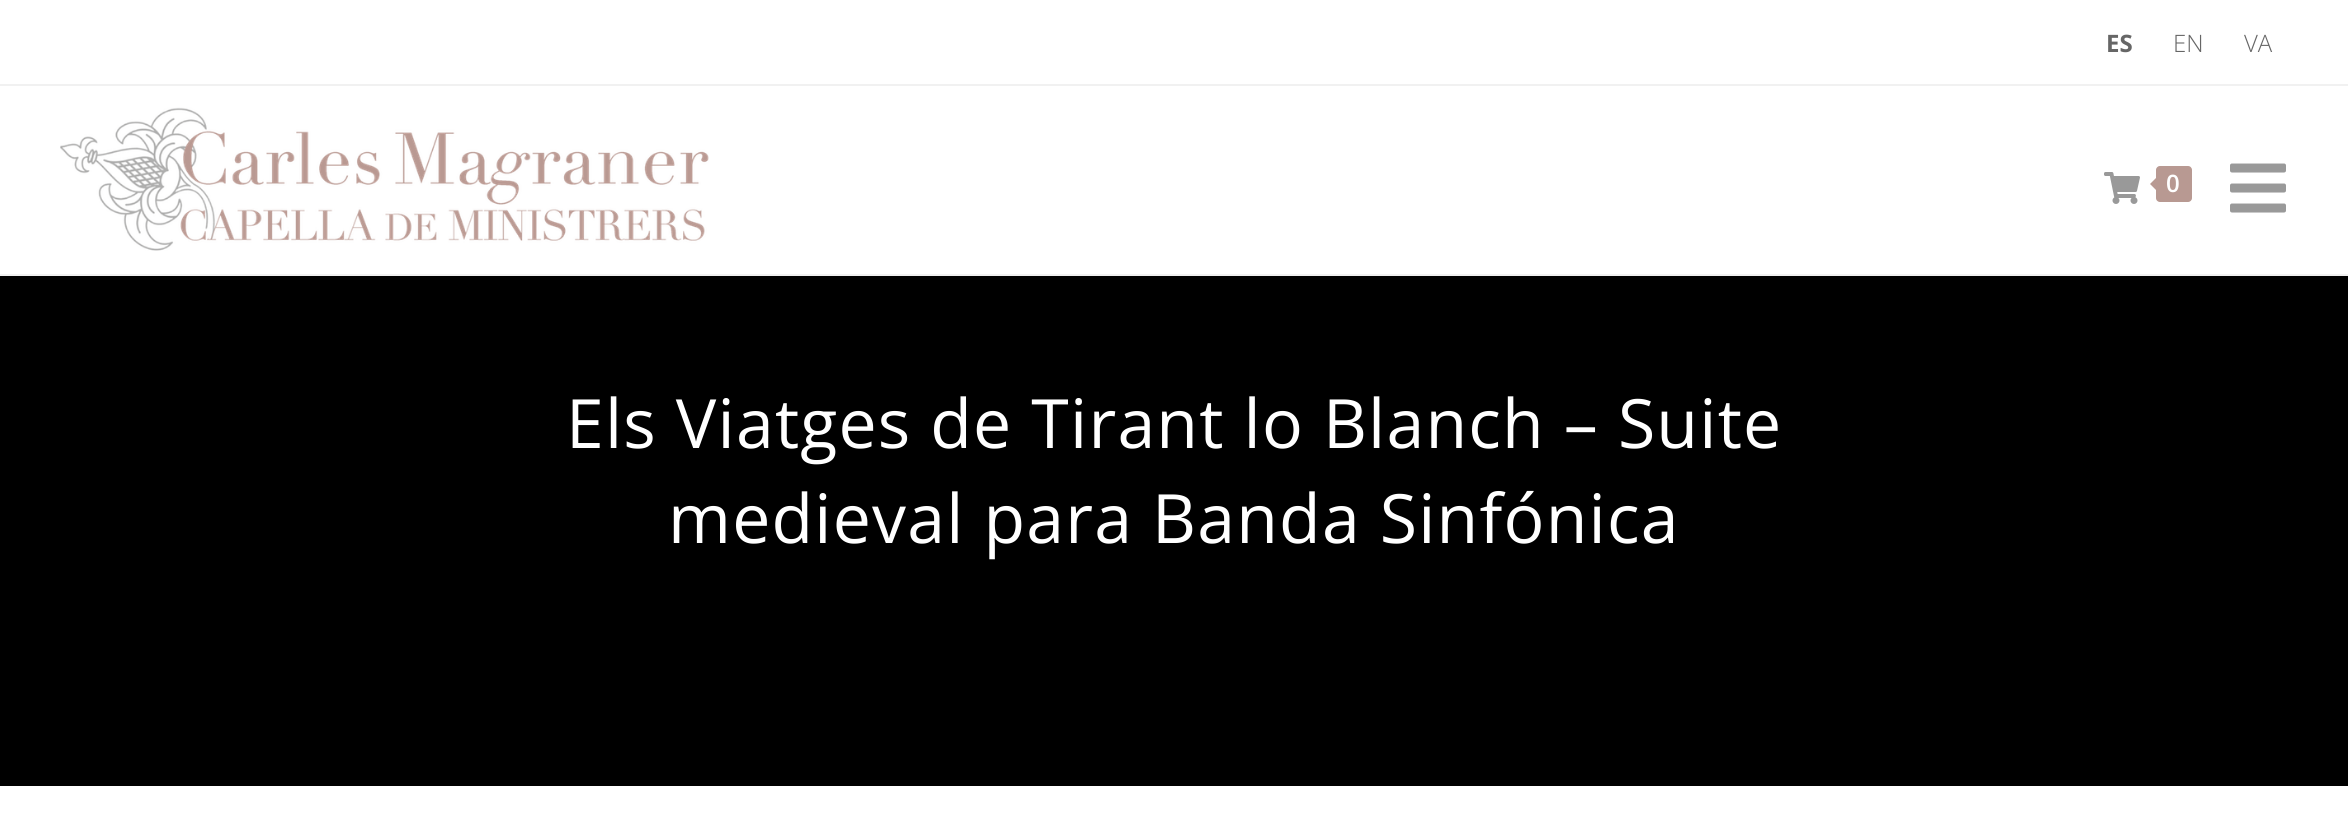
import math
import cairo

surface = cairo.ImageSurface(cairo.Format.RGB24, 2348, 826)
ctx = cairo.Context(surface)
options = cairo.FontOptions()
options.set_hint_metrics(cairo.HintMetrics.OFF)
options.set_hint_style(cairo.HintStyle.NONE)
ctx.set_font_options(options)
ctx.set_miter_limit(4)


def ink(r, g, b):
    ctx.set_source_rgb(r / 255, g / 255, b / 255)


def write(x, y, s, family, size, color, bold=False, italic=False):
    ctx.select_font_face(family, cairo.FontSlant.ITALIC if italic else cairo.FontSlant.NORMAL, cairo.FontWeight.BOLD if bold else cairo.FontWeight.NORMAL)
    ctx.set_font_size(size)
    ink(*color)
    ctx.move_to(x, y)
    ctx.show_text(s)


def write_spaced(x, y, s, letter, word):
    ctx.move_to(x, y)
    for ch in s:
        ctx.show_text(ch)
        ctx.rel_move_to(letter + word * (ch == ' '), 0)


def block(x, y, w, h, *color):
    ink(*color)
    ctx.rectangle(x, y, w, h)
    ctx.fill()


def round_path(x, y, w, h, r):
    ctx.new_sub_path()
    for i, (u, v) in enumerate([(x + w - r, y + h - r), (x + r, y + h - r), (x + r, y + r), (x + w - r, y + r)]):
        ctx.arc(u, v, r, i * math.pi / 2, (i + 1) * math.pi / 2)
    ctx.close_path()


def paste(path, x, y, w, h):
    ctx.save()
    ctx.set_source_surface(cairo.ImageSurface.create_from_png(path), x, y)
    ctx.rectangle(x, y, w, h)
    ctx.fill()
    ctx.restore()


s1 = dict(family="Open Sans", size=24, color=(102, 102, 102), bold=True)
s2 = dict(family="Open Sans Light", size=24, color=(102, 102, 102))

ink(255, 255, 255)
ctx.paint()
block(0, 84, 2348, 2, 241, 241, 241)
write(2106, 52, "ES", **s1)
write(2173, 52, "EN", **s2)
write(2244, 52, "VA", **s2)
block(0, 274, 2348, 2, 241, 241, 241)
paste("pic1.png", 60, 107, 649, 144)
paste("pic2.png", 2104, 172, 36, 32)
ink(184, 153, 146)
round_path(2156, 166, 36, 36, 4)
ctx.fill()
ctx.new_path()
ctx.move_to(2160, 174)
ctx.line_to(2160, 194)
ctx.line_to(2150, 184)
ctx.close_path()
ctx.fill()
ctx.select_font_face("Open Sans SemiBold")
ink(255, 255, 255)
write_spaced(2166, 192, "0", 1.2, 0)
paste("pic3.png", 2230, 163, 56, 50)
block(0, 276, 2348, 510, 0, 0, 0)
ctx.select_font_face("Open Sans")
ctx.set_font_size(68)
ink(255, 255, 255)
write_spaced(566, 448, "Els Viatges de Tirant lo Blanch – Suite", 1.2, 0)
write_spaced(668, 543, "medieval para Banda Sinfónica", 1.2, 0)
surface.write_to_png("screenshot.png")
